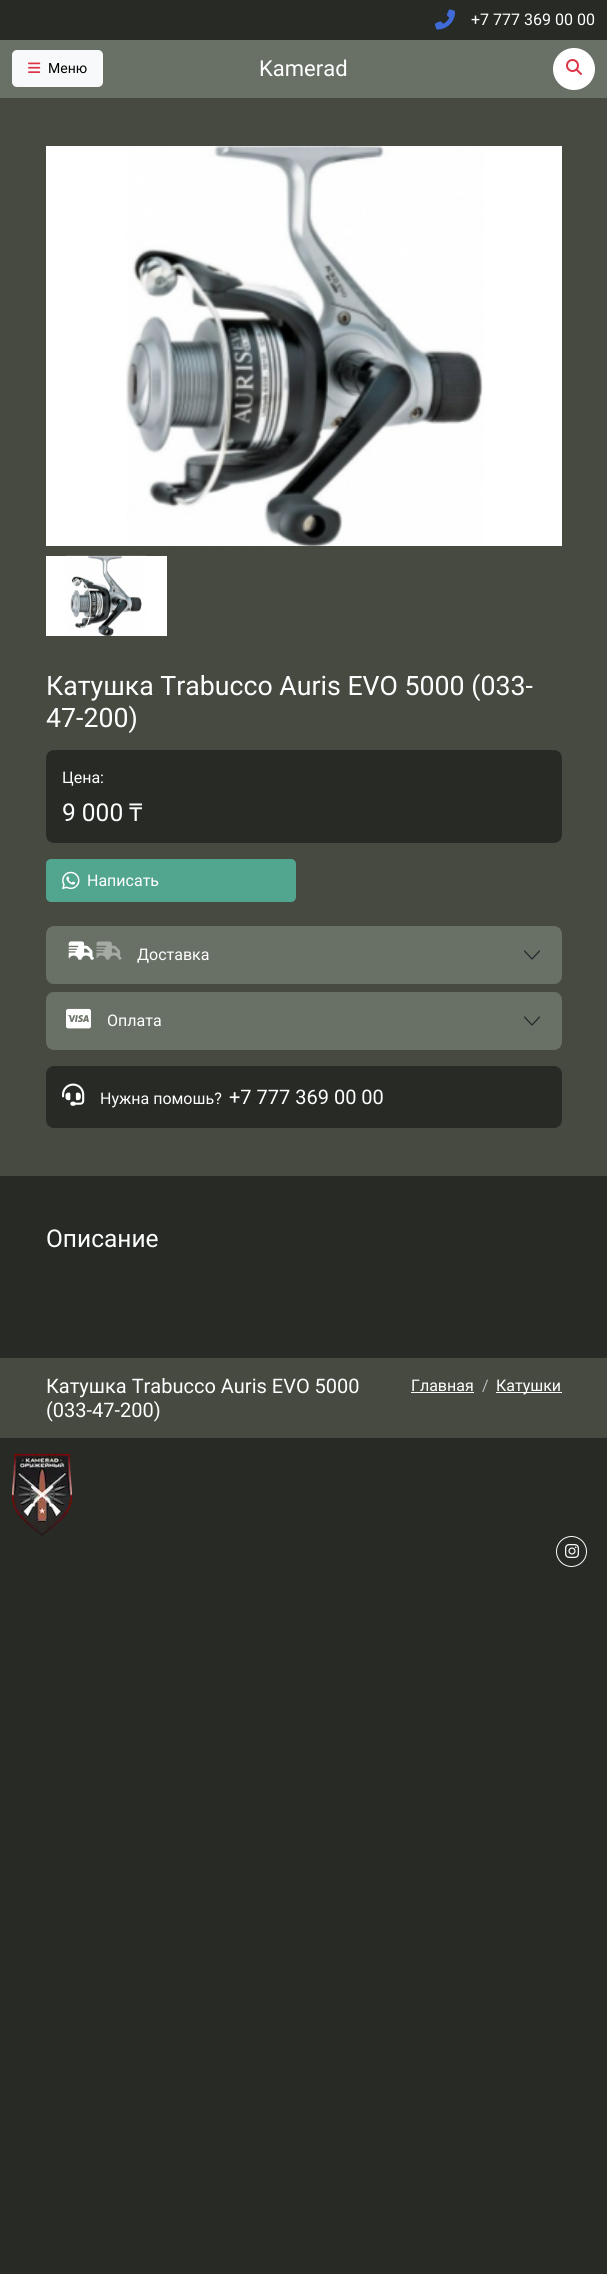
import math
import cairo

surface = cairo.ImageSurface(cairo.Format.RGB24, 607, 2274)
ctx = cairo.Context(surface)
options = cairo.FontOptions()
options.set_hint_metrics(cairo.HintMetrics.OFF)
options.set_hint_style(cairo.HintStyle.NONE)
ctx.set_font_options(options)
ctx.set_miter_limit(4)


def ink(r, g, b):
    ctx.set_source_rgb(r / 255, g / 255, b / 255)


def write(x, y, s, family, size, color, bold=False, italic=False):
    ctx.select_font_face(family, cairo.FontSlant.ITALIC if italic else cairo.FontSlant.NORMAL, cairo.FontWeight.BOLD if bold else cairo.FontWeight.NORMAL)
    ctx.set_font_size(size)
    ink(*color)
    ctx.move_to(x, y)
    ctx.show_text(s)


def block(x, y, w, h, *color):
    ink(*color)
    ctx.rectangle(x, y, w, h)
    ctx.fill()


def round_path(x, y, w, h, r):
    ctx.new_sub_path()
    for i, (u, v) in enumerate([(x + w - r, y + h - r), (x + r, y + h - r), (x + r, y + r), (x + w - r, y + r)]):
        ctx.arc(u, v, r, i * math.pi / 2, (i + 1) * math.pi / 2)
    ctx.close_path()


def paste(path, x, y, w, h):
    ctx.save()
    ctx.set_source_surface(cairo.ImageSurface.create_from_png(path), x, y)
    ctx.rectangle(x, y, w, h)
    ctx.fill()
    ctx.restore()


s1 = dict(family="Roboto", size=16, color=(255, 255, 255))
s2 = dict(family="Roboto", size=14, color=(0, 0, 0))
s3 = dict(family="Roboto", size=22, color=(255, 255, 255))
s4 = dict(family="Roboto", size=26.7, color=(255, 255, 255))
s5 = dict(family="Roboto", size=24.5, color=(255, 255, 255))
s6 = dict(family="Noto Sans", size=24.5, color=(255, 255, 255))
s7 = dict(family="Roboto", size=20, color=(255, 255, 255))
s8 = dict(family="Roboto", size=16, color=(184, 188, 189))

ink(40, 43, 37)
ctx.paint()
paste("pic1.png", 435, 9, 20, 21)
write(471, 25, "+7 777 369 00 00", **s1)
block(0, 40, 607, 58, 105, 113, 102)
ink(248, 249, 250)
round_path(12, 50, 91, 37, 5)
ctx.fill()
paste("pic2.png", 28, 62, 13, 11)
write(48, 73, "Меню", **s2)
write(259, 76, "Kamerad", **s3)
ctx.new_path()
ctx.arc(574, 69, 21, 0, 2 * math.pi)
ctx.fill()
paste("pic3.png", 566, 59, 16, 16)
block(0, 98, 607, 1078, 70, 74, 65)
block(46, 146, 516, 400, 255, 255, 255)
paste("pic4.png", 126, 146, 358, 400)
block(46, 556, 121, 80, 255, 255, 255)
paste("pic5.png", 66, 555, 80, 81)
write(46, 695, "Катушка Trabucco Auris EVO 5000 (033-", **s4)
write(46, 727, "47-200)", **s4)
ink(40, 43, 37)
round_path(46, 750, 516, 93, 8)
ctx.fill()
write(62, 783, "Цена:", **s1)
write(62, 821, "9 000", **s5)
write(129, 821, "₸", **s6)
ink(82, 165, 143)
round_path(46, 859, 250, 43, 5)
ctx.fill()
paste("pic6.png", 62, 871, 18, 19)
write(87, 886, "Написать", **s1)
ink(105, 113, 102)
round_path(46, 926, 516, 58, 8)
ctx.fill()
paste("pic7.png", 68, 941, 26, 19)
paste("pic8.png", 68, 941, 54, 19)
write(137, 960, "Доставка", **s1)
ctx.new_path()
ctx.move_to(524.5, 951)
ctx.line_to(532, 959)
ctx.line_to(539.5, 951)
ink(33, 37, 41)
ctx.set_line_width(1.2)
ctx.set_line_cap(cairo.LineCap.ROUND)
ctx.set_line_join(cairo.LineJoin.ROUND)
ctx.stroke()
ink(105, 113, 102)
round_path(46, 992, 516, 58, 8)
ctx.fill()
paste("pic9.png", 66, 1008, 25, 21)
write(107, 1026, "Оплата", **s1)
ctx.new_path()
ctx.move_to(524.5, 1017)
ctx.line_to(532, 1025)
ctx.line_to(539.5, 1017)
ink(33, 37, 41)
ctx.stroke()
ink(40, 43, 37)
round_path(46, 1066, 516, 62, 8)
ctx.fill()
paste("pic10.png", 62, 1083, 23, 23)
write(100, 1104, "Нужна помошь?", **s1)
write(229, 1104, "+7 777 369 00 00", **s7)
write(46, 1247, "Описание", **s5)
block(0, 1358, 607, 80, 70, 74, 65)
write(46, 1393, "Катушка Trabucco Auris EVO 5000", **s7)
write(46, 1417, "(033-47-200)", **s7)
write(411, 1391, "Главная", **s1)
block(411, 1392, 63, 1, 255, 255, 255)
write(482, 1391, "/", **s8)
block(496, 1392, 66, 1, 255, 255, 255)
write(496, 1391, "Катушки", **s1)
paste("pic11.png", 12, 1454, 60, 82)
ctx.arc(571.5, 1551.5, 15, 0, 2 * math.pi)
ink(248, 249, 250)
ctx.set_line_width(1)
ctx.set_line_cap(cairo.LineCap.BUTT)
ctx.set_line_join(cairo.LineJoin.MITER)
ctx.stroke()
paste("pic12.png", 565, 1544, 14, 14)
surface.write_to_png("screenshot.png")
